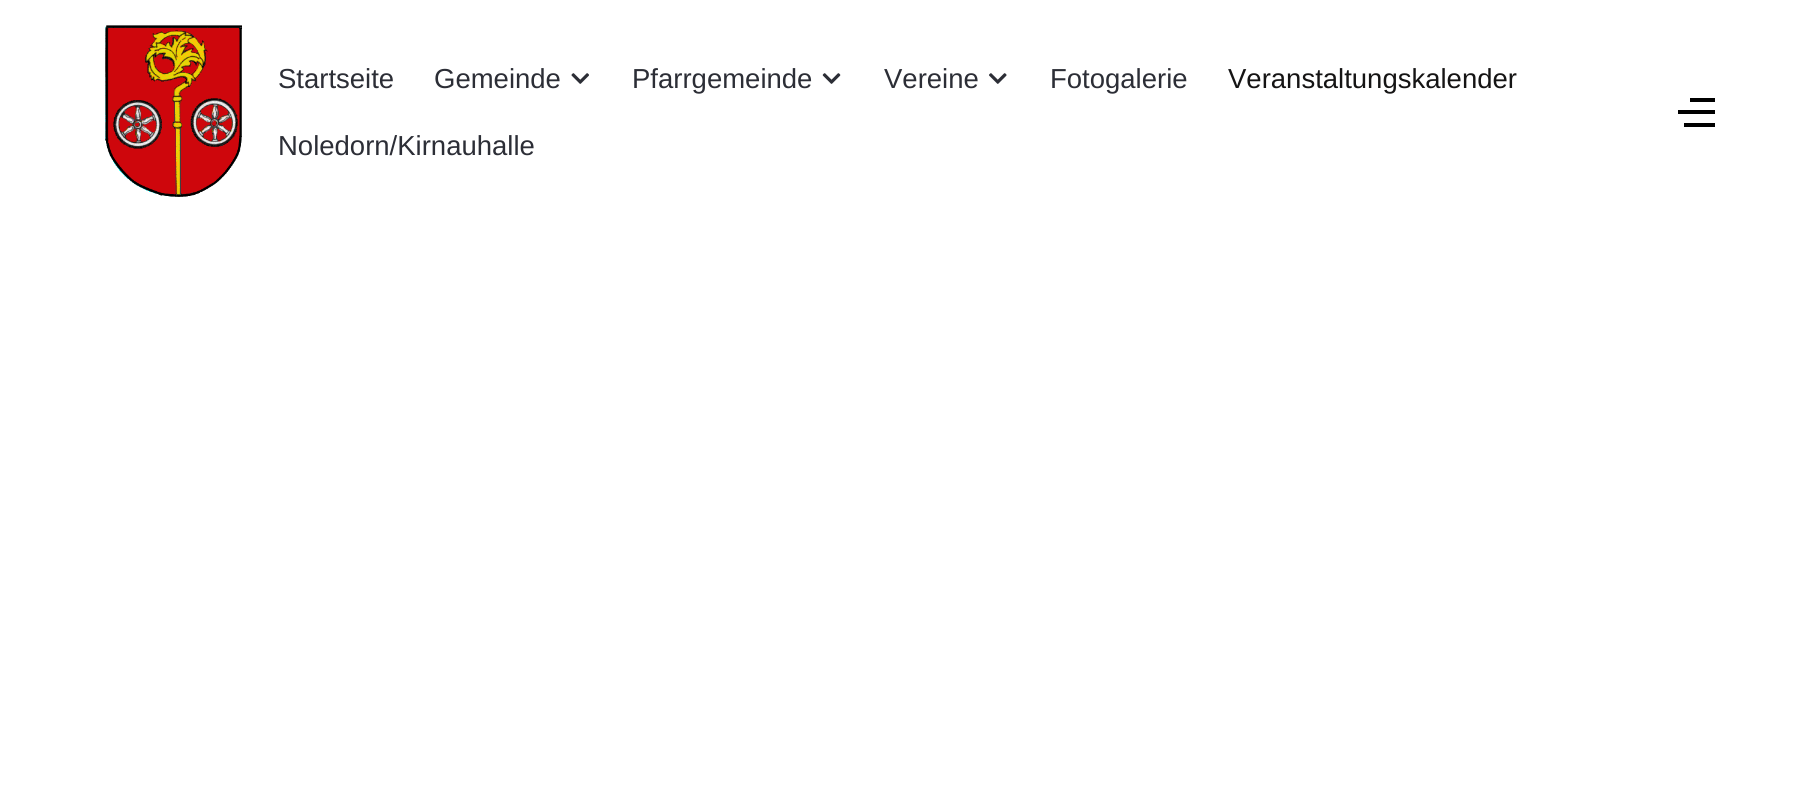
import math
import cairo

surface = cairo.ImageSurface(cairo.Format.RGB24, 1813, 790)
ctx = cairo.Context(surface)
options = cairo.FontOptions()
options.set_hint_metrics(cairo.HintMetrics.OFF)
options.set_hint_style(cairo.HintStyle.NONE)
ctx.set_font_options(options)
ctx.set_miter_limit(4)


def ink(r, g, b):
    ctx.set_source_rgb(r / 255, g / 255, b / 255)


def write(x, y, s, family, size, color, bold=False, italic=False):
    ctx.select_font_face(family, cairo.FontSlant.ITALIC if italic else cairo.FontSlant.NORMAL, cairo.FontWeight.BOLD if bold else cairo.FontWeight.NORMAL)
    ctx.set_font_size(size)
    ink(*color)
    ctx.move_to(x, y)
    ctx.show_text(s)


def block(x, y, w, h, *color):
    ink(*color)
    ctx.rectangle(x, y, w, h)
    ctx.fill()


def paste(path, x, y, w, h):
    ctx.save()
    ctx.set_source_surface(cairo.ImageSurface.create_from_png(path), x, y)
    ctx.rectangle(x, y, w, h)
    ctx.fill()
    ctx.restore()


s1 = dict(family="Liberation Sans", size=27.5, color=(44, 46, 54))
s2 = dict(family="Liberation Sans", size=27.5, color=(21, 20, 20))

ink(255, 255, 255)
ctx.paint()
paste("pic1.png", 105, 25, 137, 172)
write(278, 88, "Startseite", **s1)
write(434, 88, "Gemeinde", **s1)
paste("pic2.png", 571, 73, 18, 11)
write(632, 88, "Pfarrgemeinde", **s1)
paste("pic3.png", 822, 73, 19, 11)
write(884, 88, "Vereine", **s1)
paste("pic4.png", 989, 73, 18, 11)
write(1050, 88, "Fotogalerie", **s1)
write(1228, 88, "Veranstaltungskalender", **s2)
write(278, 155, "Noledorn/Kirnauhalle", **s1)
block(1678, 110, 37, 4, 0, 0, 0)
block(1690, 98, 25, 4, 0, 0, 0)
block(1684, 123, 31, 4, 0, 0, 0)
surface.write_to_png("screenshot.png")
